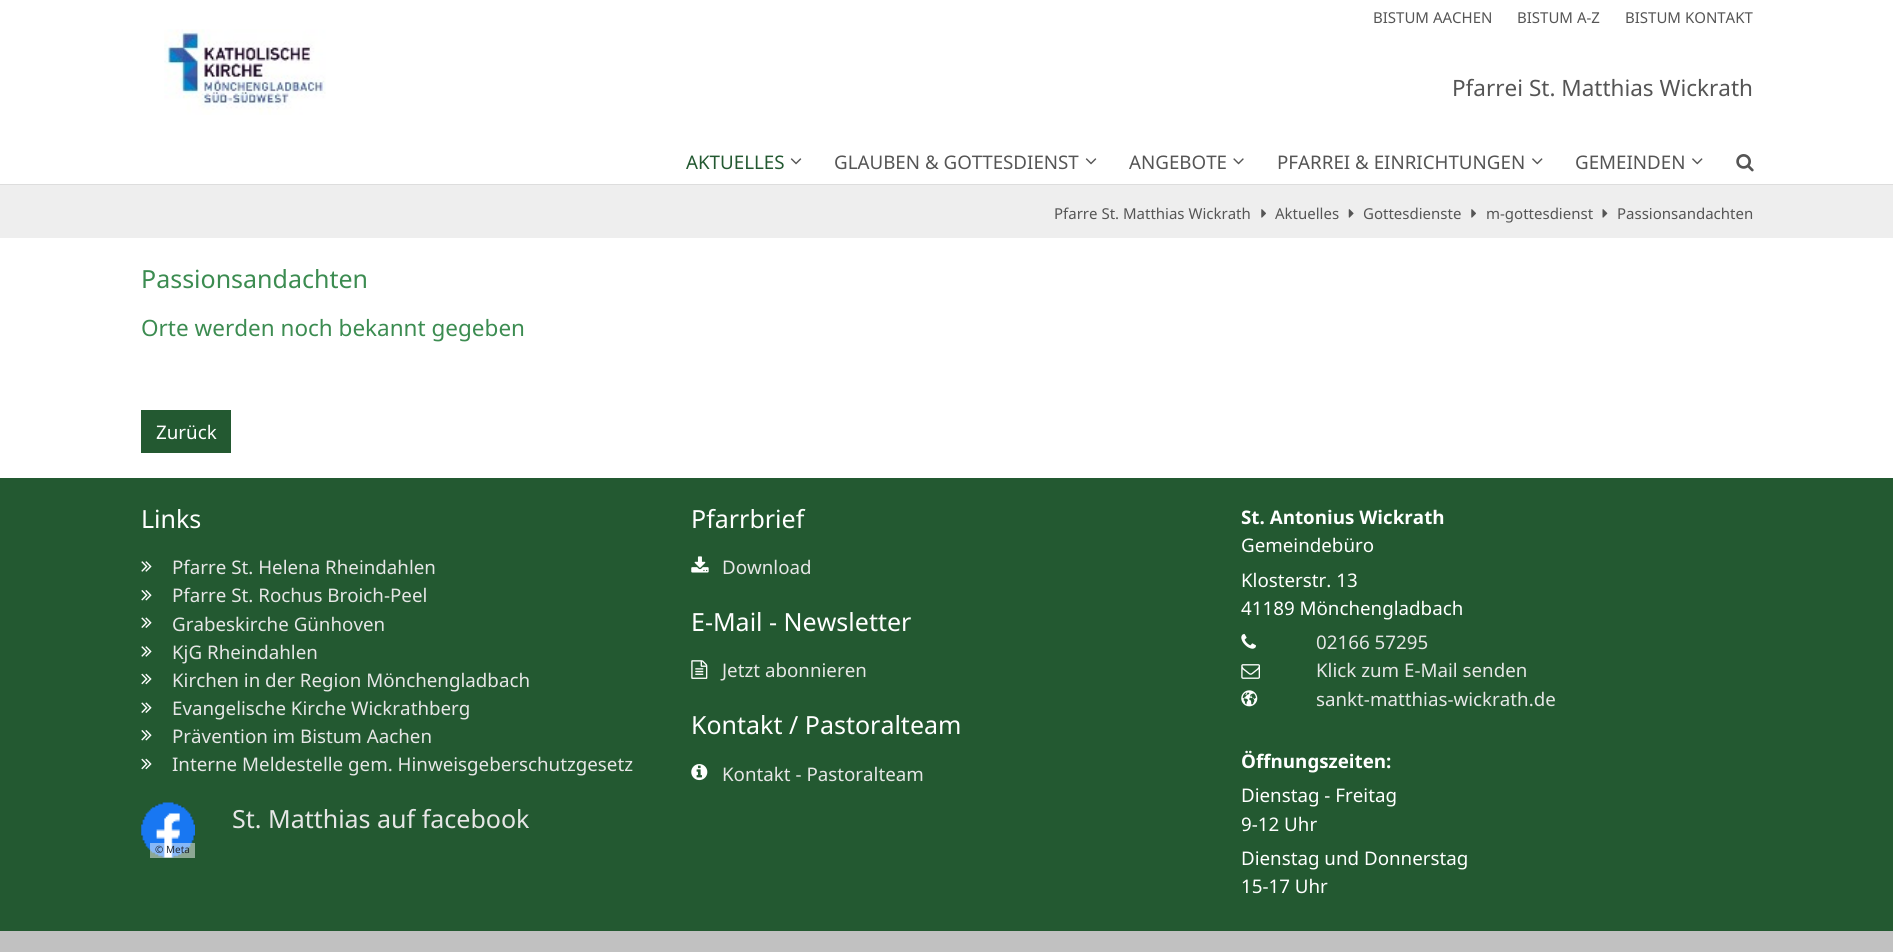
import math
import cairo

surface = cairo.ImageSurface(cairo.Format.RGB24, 1893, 952)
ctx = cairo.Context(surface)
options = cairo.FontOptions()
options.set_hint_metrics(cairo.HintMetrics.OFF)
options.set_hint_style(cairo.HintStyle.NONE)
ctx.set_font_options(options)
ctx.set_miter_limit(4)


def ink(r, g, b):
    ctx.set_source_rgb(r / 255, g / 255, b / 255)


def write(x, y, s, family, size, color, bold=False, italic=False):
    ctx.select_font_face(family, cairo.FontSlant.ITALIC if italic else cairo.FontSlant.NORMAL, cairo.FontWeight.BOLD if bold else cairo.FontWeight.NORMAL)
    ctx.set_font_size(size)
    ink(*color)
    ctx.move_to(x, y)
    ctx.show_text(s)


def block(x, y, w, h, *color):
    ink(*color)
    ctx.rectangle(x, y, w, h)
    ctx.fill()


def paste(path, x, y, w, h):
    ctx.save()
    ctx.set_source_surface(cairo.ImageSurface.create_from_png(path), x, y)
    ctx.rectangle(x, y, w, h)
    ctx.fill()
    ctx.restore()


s1 = dict(family="Noto Sans", size=15, color=(85, 85, 85))
s2 = dict(family="Noto Sans", size=22.5, color=(85, 85, 85))
s3 = dict(family="Noto Sans", size=18.75, color=(35, 89, 49))
s4 = dict(family="Noto Sans", size=18.75, color=(85, 85, 85))
s5 = dict(family="Noto Sans", size=25, color=(60, 140, 81))
s6 = dict(family="Noto Sans", size=22.5, color=(60, 140, 81))
s7 = dict(family="Noto Sans", size=18.75, color=(255, 255, 255))
s8 = dict(family="Noto Sans", size=25, color=(255, 255, 255))
s9 = dict(family="Noto Sans", size=18.75, color=(230, 230, 230))
s10 = dict(family="Noto Sans", size=25, color=(230, 230, 230))
s11 = dict(family="Noto Sans", size=10, color=(32, 39, 48))
s12 = dict(family="Noto Sans", size=18.75, color=(255, 255, 255), bold=True)

ink(255, 255, 255)
ctx.paint()
block(0, 184, 1893, 1, 221, 221, 221)
paste("pic1.png", 164, 29, 162, 86)
write(1373, 23, "BISTUM AACHEN", **s1)
write(1517, 23, "BISTUM A-Z", **s1)
write(1625, 23, "BISTUM KONTAKT", **s1)
write(1452, 96, "Pfarrei St. Matthias Wickrath", **s2)
write(686, 169, "AKTUELLES", **s3)
paste("pic2.png", 790, 158, 12, 7)
write(834, 169, "GLAUBEN & GOTTESDIENST", **s4)
paste("pic2.png", 1085, 158, 12, 7)
write(1129, 169, "ANGEBOTE", **s4)
paste("pic3.png", 1233, 158, 11, 7)
write(1277, 169, "PFARREI & EINRICHTUNGEN", **s4)
paste("pic4.png", 1532, 158, 11, 7)
write(1575, 169, "GEMEINDEN", **s4)
paste("pic4.png", 1692, 158, 11, 7)
paste("pic5.png", 1736, 154, 18, 18)
block(0, 185, 1893, 53, 238, 238, 238)
write(1054, 219, "Pfarre St. Matthias Wickrath", **s1)
paste("pic6.png", 1261, 209, 5, 9)
write(1275, 219, "Aktuelles", **s1)
paste("pic7.png", 1348, 209, 6, 9)
write(1363, 219, "Gottesdienste", **s1)
paste("pic6.png", 1471, 209, 5, 9)
write(1486, 219, "m-gottesdienst", **s1)
paste("pic8.png", 1602, 209, 6, 9)
write(1617, 219, "Passionsandachten", **s1)
write(141, 288, "Passionsandachten", **s5)
write(141, 336, "Orte werden noch bekannt gegeben", **s6)
block(141, 410, 90, 43, 35, 89, 49)
write(156, 439, "Zurück", **s7)
block(0, 478, 1893, 453, 35, 89, 49)
write(141, 528, "Links", **s8)
paste("pic9.png", 141, 561, 11, 11)
write(172, 574, "Pfarre St. Helena Rheindahlen", **s9)
paste("pic10.png", 141, 590, 11, 11)
write(172, 602, "Pfarre St. Rochus Broich-Peel", **s9)
paste("pic11.png", 141, 617, 11, 11)
write(172, 631, "Grabeskirche Günhoven", **s9)
paste("pic9.png", 141, 646, 11, 11)
write(172, 659, "KjG Rheindahlen", **s9)
paste("pic12.png", 141, 673, 11, 12)
write(172, 687, "Kirchen in der Region Mönchengladbach", **s9)
paste("pic11.png", 141, 702, 11, 11)
write(172, 715, "Evangelische Kirche Wickrathberg", **s9)
paste("pic10.png", 141, 730, 11, 11)
write(172, 743, "Prävention im Bistum Aachen", **s9)
paste("pic12.png", 141, 758, 11, 12)
write(172, 771, "Interne Meldestelle gem. Hinweisgeberschutzgesetz", **s9)
write(232, 828, "St. Matthias auf facebook", **s10)
paste("pic13.png", 141, 802, 54, 56)
ctx.set_source_rgba(1, 1, 1, 0.48)
ctx.rectangle(150, 843, 45, 15)
ctx.fill()
write(155, 853, "© Meta", **s11)
write(691, 528, "Pfarrbrief", **s8)
paste("pic14.png", 691, 556, 18, 17)
write(722, 574, "Download", **s9)
write(691, 631, "E-Mail - Newsletter", **s8)
paste("pic15.png", 691, 660, 17, 19)
write(722, 677, "Jetzt abonnieren", **s9)
write(691, 734, "Kontakt / Pastoralteam", **s8)
paste("pic16.png", 691, 764, 17, 17)
write(722, 781, "Kontakt - Pastoralteam", **s9)
write(1241, 524, "St. Antonius Wickrath", **s12)
write(1241, 552, "Gemeindebüro", **s7)
write(1241, 587, "Klosterstr. 13", **s7)
write(1241, 615, "41189 Mönchengladbach", **s7)
paste("pic17.png", 1241, 634, 15, 15)
write(1316, 649, "02166 57295", **s9)
paste("pic18.png", 1241, 664, 19, 15)
write(1316, 677, "Klick zum E-Mail senden", **s9)
paste("pic19.png", 1241, 690, 17, 17)
write(1316, 706, "sankt-matthias-wickrath.de", **s9)
write(1241, 768, "Öffnungszeiten:", **s12)
write(1241, 802, "Dienstag - Freitag", **s7)
write(1241, 831, "9-12 Uhr", **s7)
write(1241, 865, "Dienstag und Donnerstag", **s7)
write(1241, 893, "15-17 Uhr", **s7)
block(0, 931, 1893, 21, 193, 193, 193)
surface.write_to_png("screenshot.png")
